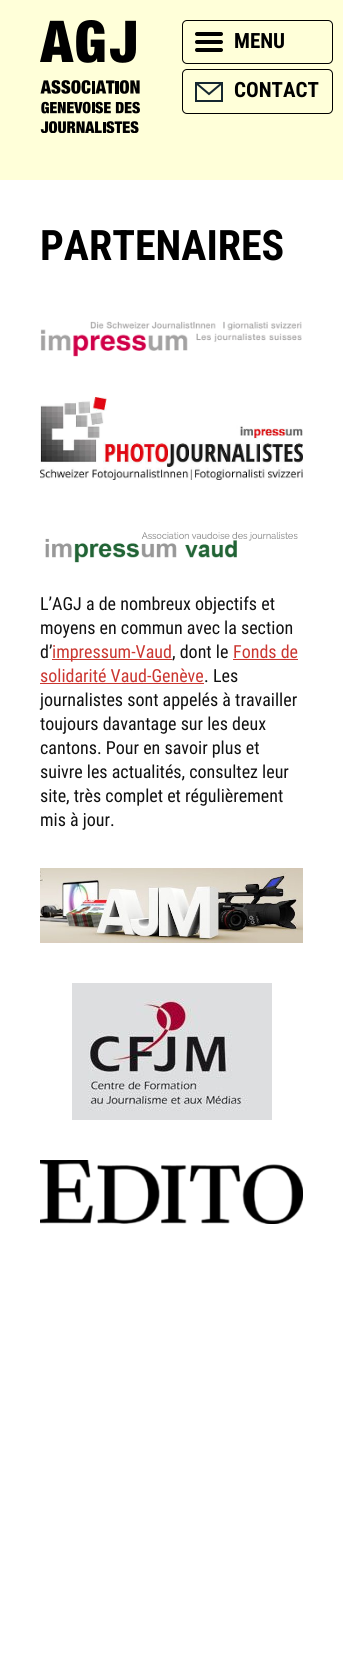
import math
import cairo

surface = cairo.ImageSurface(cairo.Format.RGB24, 343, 1668)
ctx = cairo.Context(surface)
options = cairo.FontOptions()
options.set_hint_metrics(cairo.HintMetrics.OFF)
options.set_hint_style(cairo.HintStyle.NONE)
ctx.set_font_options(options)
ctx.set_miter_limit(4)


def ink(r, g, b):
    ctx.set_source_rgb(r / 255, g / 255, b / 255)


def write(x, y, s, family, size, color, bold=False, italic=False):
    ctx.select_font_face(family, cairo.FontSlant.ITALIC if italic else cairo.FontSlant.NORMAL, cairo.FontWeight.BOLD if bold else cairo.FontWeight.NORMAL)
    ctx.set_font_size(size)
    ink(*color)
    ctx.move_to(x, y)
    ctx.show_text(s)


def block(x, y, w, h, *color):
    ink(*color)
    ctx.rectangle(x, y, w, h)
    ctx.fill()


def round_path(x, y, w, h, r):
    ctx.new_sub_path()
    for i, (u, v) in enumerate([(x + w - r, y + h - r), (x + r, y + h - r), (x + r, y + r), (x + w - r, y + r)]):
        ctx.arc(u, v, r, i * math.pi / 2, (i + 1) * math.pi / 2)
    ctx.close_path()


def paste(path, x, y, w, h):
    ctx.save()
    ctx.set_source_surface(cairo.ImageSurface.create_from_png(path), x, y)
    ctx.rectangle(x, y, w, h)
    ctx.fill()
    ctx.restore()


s1 = dict(family="Roboto Condensed", size=21, color=(0, 0, 0), bold=True)
s2 = dict(family="Roboto Condensed", size=42, color=(0, 0, 0), bold=True)
s3 = dict(family="Roboto Condensed", size=18, color=(17, 17, 17))
s4 = dict(family="Roboto Condensed", size=18, color=(203, 55, 49))

ink(255, 255, 255)
ctx.paint()
block(0, 0, 343, 180, 255, 255, 217)
paste("pic1.png", 40, 20, 100, 113)
round_path(182.5, 20.5, 150, 43, 4.5)
ink(0, 0, 0)
ctx.set_line_width(1)
ctx.stroke()
paste("pic2.png", 195, 32, 28, 20)
write(234, 48, "MENU", **s1)
round_path(182.5, 69.5, 150, 44, 4.5)
ctx.stroke()
paste("pic3.png", 195, 82, 28, 20)
write(234, 97, "CONTACT", **s1)
write(40, 260, "PARTENAIRES", **s2)
paste("pic4.png", 40, 321, 262, 36)
paste("pic5.png", 40, 397, 263, 83)
paste("pic6.png", 45, 532, 253, 31)
write(40, 610, "L’AGJ a de nombreux objectifs et", **s3)
write(40, 634, "moyens en commun avec la section", **s3)
write(40, 658, "d’", **s3)
block(52, 659, 120, 1, 203, 55, 49)
write(52, 658, "impressum-Vaud", **s4)
write(172, 658, ", dont le", **s3)
write(233, 658, "Fonds de", **s4)
block(233, 659, 65, 1, 203, 55, 49)
write(40, 682, "solidarité Vaud-Genève", **s4)
block(40, 683, 164, 1, 203, 55, 49)
write(204, 682, ". Les", **s3)
write(40, 706, "journalistes sont appelés à travailler", **s3)
write(40, 730, "toujours davantage sur les deux", **s3)
write(40, 754, "cantons. Pour en savoir plus et", **s3)
write(40, 778, "suivre les actualités, consultez leur", **s3)
write(40, 802, "site, très complet et régulièrement", **s3)
write(40, 826, "mis à jour.", **s3)
paste("pic7.png", 40, 868, 263, 75)
paste("pic8.png", 72, 983, 200, 137)
paste("pic9.png", 40, 1160, 263, 64)
surface.write_to_png("screenshot.png")
